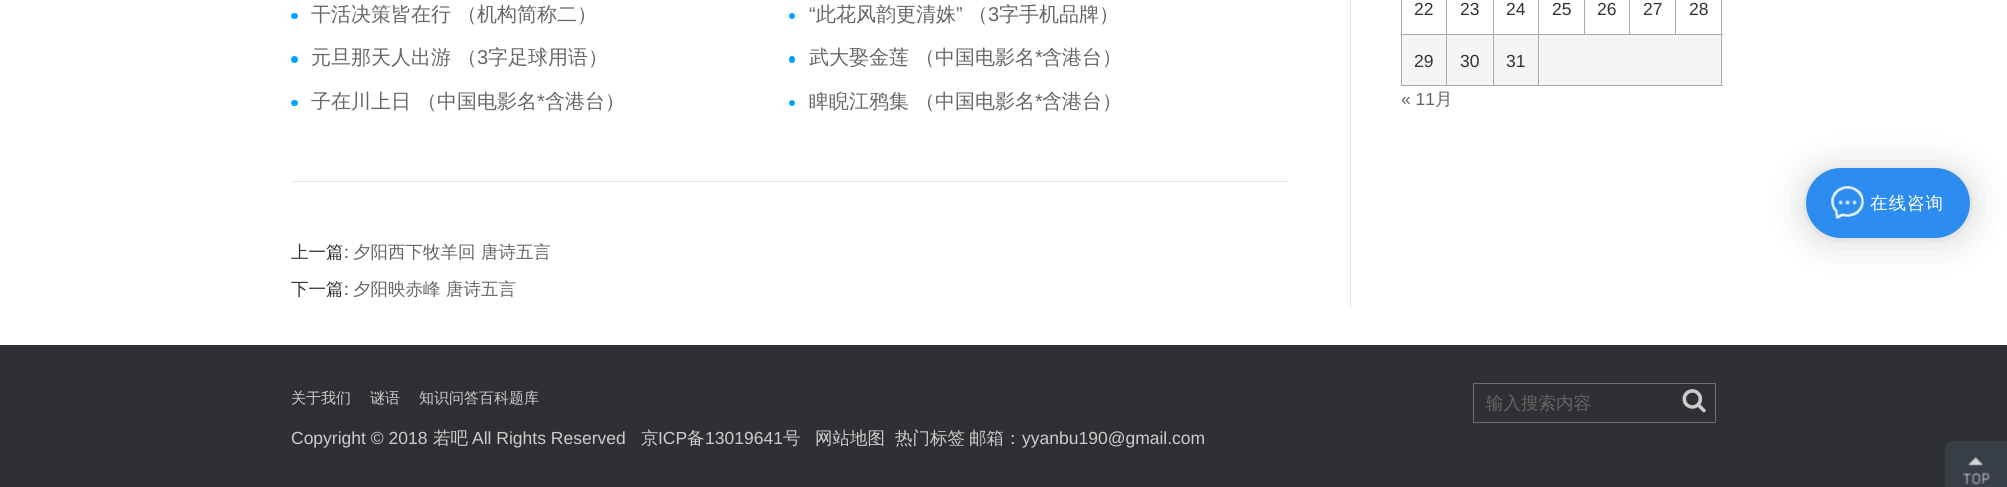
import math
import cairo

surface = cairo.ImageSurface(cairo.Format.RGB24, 2007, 487)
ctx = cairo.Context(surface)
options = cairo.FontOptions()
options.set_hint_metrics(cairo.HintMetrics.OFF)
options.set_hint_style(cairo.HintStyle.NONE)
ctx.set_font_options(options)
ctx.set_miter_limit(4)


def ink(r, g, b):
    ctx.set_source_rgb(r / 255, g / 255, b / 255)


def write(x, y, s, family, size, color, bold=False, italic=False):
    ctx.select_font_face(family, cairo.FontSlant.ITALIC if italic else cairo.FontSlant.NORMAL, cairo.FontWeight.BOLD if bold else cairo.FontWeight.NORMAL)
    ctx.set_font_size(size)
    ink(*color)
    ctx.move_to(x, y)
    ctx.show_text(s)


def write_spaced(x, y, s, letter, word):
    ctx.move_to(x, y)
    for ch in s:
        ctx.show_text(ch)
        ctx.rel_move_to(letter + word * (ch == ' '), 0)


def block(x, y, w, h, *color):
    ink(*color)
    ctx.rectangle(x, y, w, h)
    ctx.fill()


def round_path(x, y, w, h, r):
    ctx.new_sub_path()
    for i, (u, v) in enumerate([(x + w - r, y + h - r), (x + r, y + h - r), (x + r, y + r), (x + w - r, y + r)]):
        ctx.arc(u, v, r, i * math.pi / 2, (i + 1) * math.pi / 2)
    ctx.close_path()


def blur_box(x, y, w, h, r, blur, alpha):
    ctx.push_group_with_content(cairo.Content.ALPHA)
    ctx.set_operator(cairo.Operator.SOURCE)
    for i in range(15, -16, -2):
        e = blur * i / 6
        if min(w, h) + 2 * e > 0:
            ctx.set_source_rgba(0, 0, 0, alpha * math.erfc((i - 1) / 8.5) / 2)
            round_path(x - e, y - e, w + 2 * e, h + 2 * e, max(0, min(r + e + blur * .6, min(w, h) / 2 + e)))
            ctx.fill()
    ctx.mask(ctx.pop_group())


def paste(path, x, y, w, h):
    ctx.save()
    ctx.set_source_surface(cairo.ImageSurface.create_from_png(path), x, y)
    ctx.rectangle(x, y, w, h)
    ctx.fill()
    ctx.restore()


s1 = dict(family="WenQuanYi Zen Hei Medium", size=20, color=(102, 102, 102))
s2 = dict(family="Liberation Sans", size=20, color=(102, 102, 102))
s3 = dict(family="WenQuanYi Zen Hei Medium", size=17.5, color=(51, 51, 51))
s4 = dict(family="Liberation Sans", size=17.5, color=(51, 51, 51))
s5 = dict(family="WenQuanYi Zen Hei Medium", size=17.5, color=(102, 102, 102))
s6 = dict(family="Liberation Sans", size=17.5, color=(102, 102, 102))
s7 = dict(family="WenQuanYi Zen Hei Medium", size=15, color=(204, 204, 204))
s8 = dict(family="Liberation Sans", size=17.5, color=(204, 204, 204))
s9 = dict(family="WenQuanYi Zen Hei Medium", size=17.5, color=(204, 204, 204))

ink(255, 255, 255)
ctx.paint()
block(1350, 0, 1, 308, 225, 232, 240)
block(291, 181, 997, 1, 228, 233, 240)
ink(0, 164, 255)
round_path(291, 13, 7, 6, 3)
ctx.fill()
write(311, 21, "干活决策皆在行 （机构简称二）", **s1)
ink(0, 164, 255)
ctx.new_path()
ctx.arc(792, 16, 3, 0, 2 * math.pi)
ctx.fill()
write(809, 21, "“", **s2)
write(816, 21, "此花风韵更清姝", **s1)
write(956, 21, "”", **s2)
write(968, 21, "（", **s1)
write(988, 21, "3", **s2)
write(999, 21, "字手机品牌）", **s1)
ink(0, 164, 255)
ctx.new_path()
ctx.arc(294.5, 59.5, 3.5, 0, 2 * math.pi)
ctx.fill()
write(311, 64, "元旦那天人出游 （", **s1)
write(477, 64, "3", **s2)
write(488, 64, "字足球用语）", **s1)
ink(0, 164, 255)
round_path(789, 56, 6, 7, 3)
ctx.fill()
write(809, 64, "武大娶金莲 （中国电影名", **s1)
write(1035, 64, "*", **s2)
write(1042, 64, "含港台）", **s1)
ink(0, 164, 255)
round_path(291, 100, 7, 6, 3)
ctx.fill()
write(311, 108, "子在川上日 （中国电影名", **s1)
write(537, 108, "*", **s2)
write(545, 108, "含港台）", **s1)
ink(0, 164, 255)
ctx.new_path()
ctx.arc(792, 103, 3, 0, 2 * math.pi)
ctx.fill()
write(809, 108, "睥睨江鸦集 （中国电影名", **s1)
write(1035, 108, "*", **s2)
write(1042, 108, "含港台）", **s1)
write(291, 258, "上一篇", **s3)
write(344, 258, ":", **s4)
write(353, 258, "夕阳西下牧羊回", **s5)
write(481, 258, "唐诗五言", **s5)
write(291, 295, "下一篇", **s3)
write(344, 295, ":", **s4)
write(353, 295, "夕阳映赤峰", **s5)
write(446, 295, "唐诗五言", **s5)
block(1721, 0, 1, 86, 170, 170, 170)
block(1401, 85, 322, 1, 170, 170, 170)
block(1401, 0, 1, 86, 170, 170, 170)
write(1414, 15, "22", **s4)
block(1538, 34, 185, 1, 170, 170, 170)
block(1402, 35, 319, 50, 245, 245, 245)
block(1538, 34, 1, 52, 170, 170, 170)
block(1493, 34, 46, 1, 170, 170, 170)
block(1493, 34, 1, 52, 170, 170, 170)
block(1446, 34, 48, 1, 170, 170, 170)
block(1446, 34, 1, 52, 170, 170, 170)
block(1401, 34, 47, 1, 170, 170, 170)
block(1446, 0, 1, 35, 170, 170, 170)
write(1460, 15, "23", **s4)
block(1493, 0, 1, 35, 170, 170, 170)
write(1506, 15, "24", **s4)
block(1538, 0, 1, 35, 170, 170, 170)
write(1552, 15, "25", **s4)
block(1584, 0, 1, 35, 170, 170, 170)
write(1597, 15, "26", **s4)
block(1629, 0, 1, 35, 170, 170, 170)
write(1643, 15, "27", **s4)
block(1675, 0, 1, 35, 170, 170, 170)
write(1689, 15, "28", **s4)
write(1414, 67, "29", **s4)
write(1460, 67, "30", **s4)
write(1506, 67, "31", **s4)
write(1401, 105, "« 11", **s6)
write(1435, 105, "月", **s5)
ink(0, 0, 0)
blur_box(1806, 170, 164, 70, 35, 20, 0.16)
blur_box(1806, 169, 164, 70, 35, 4, 0.06)
ink(45, 140, 240)
round_path(1806, 168, 164, 70, 35)
ctx.fill()
paste("pic1.png", 1831, 186, 33, 33)
ink(255, 255, 255)
write_spaced(1870, 209, "在线咨询", 1, 0)
block(0, 345, 2007, 142, 46, 48, 51)
write(291, 403, "关于我们", **s7)
write(370, 403, "谜语", **s7)
write(419, 403, "知识问答百科题库", **s7)
write(291, 444, "Copyright © 2018", **s8)
write(433, 444, "若吧", **s9)
write(472, 444, "All Rights Reserved", **s8)
write(641, 444, "京", **s9)
write(658, 444, "ICP", **s8)
write(687, 444, "备", **s9)
write(705, 444, "13019641", **s8)
write(783, 444, "号", **s9)
write(815, 444, "网站地图", **s9)
write(895, 444, "热门标签", **s9)
write(969, 444, "邮箱：", **s9)
write(1022, 444, "yyanbu190@gmail.com", **s8)
ctx.rectangle(1473.5, 383.5, 242, 39)
ink(109, 110, 112)
ctx.set_line_width(1)
ctx.stroke()
write(1486, 409, "输入搜索内容", **s5)
paste("pic2.png", 1682, 389, 24, 24)
ink(55, 62, 70)
round_path(1945, 441, 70, 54, 8)
ctx.fill()
paste("pic3.png", 1962, 457, 29, 29)
surface.write_to_png("screenshot.png")
